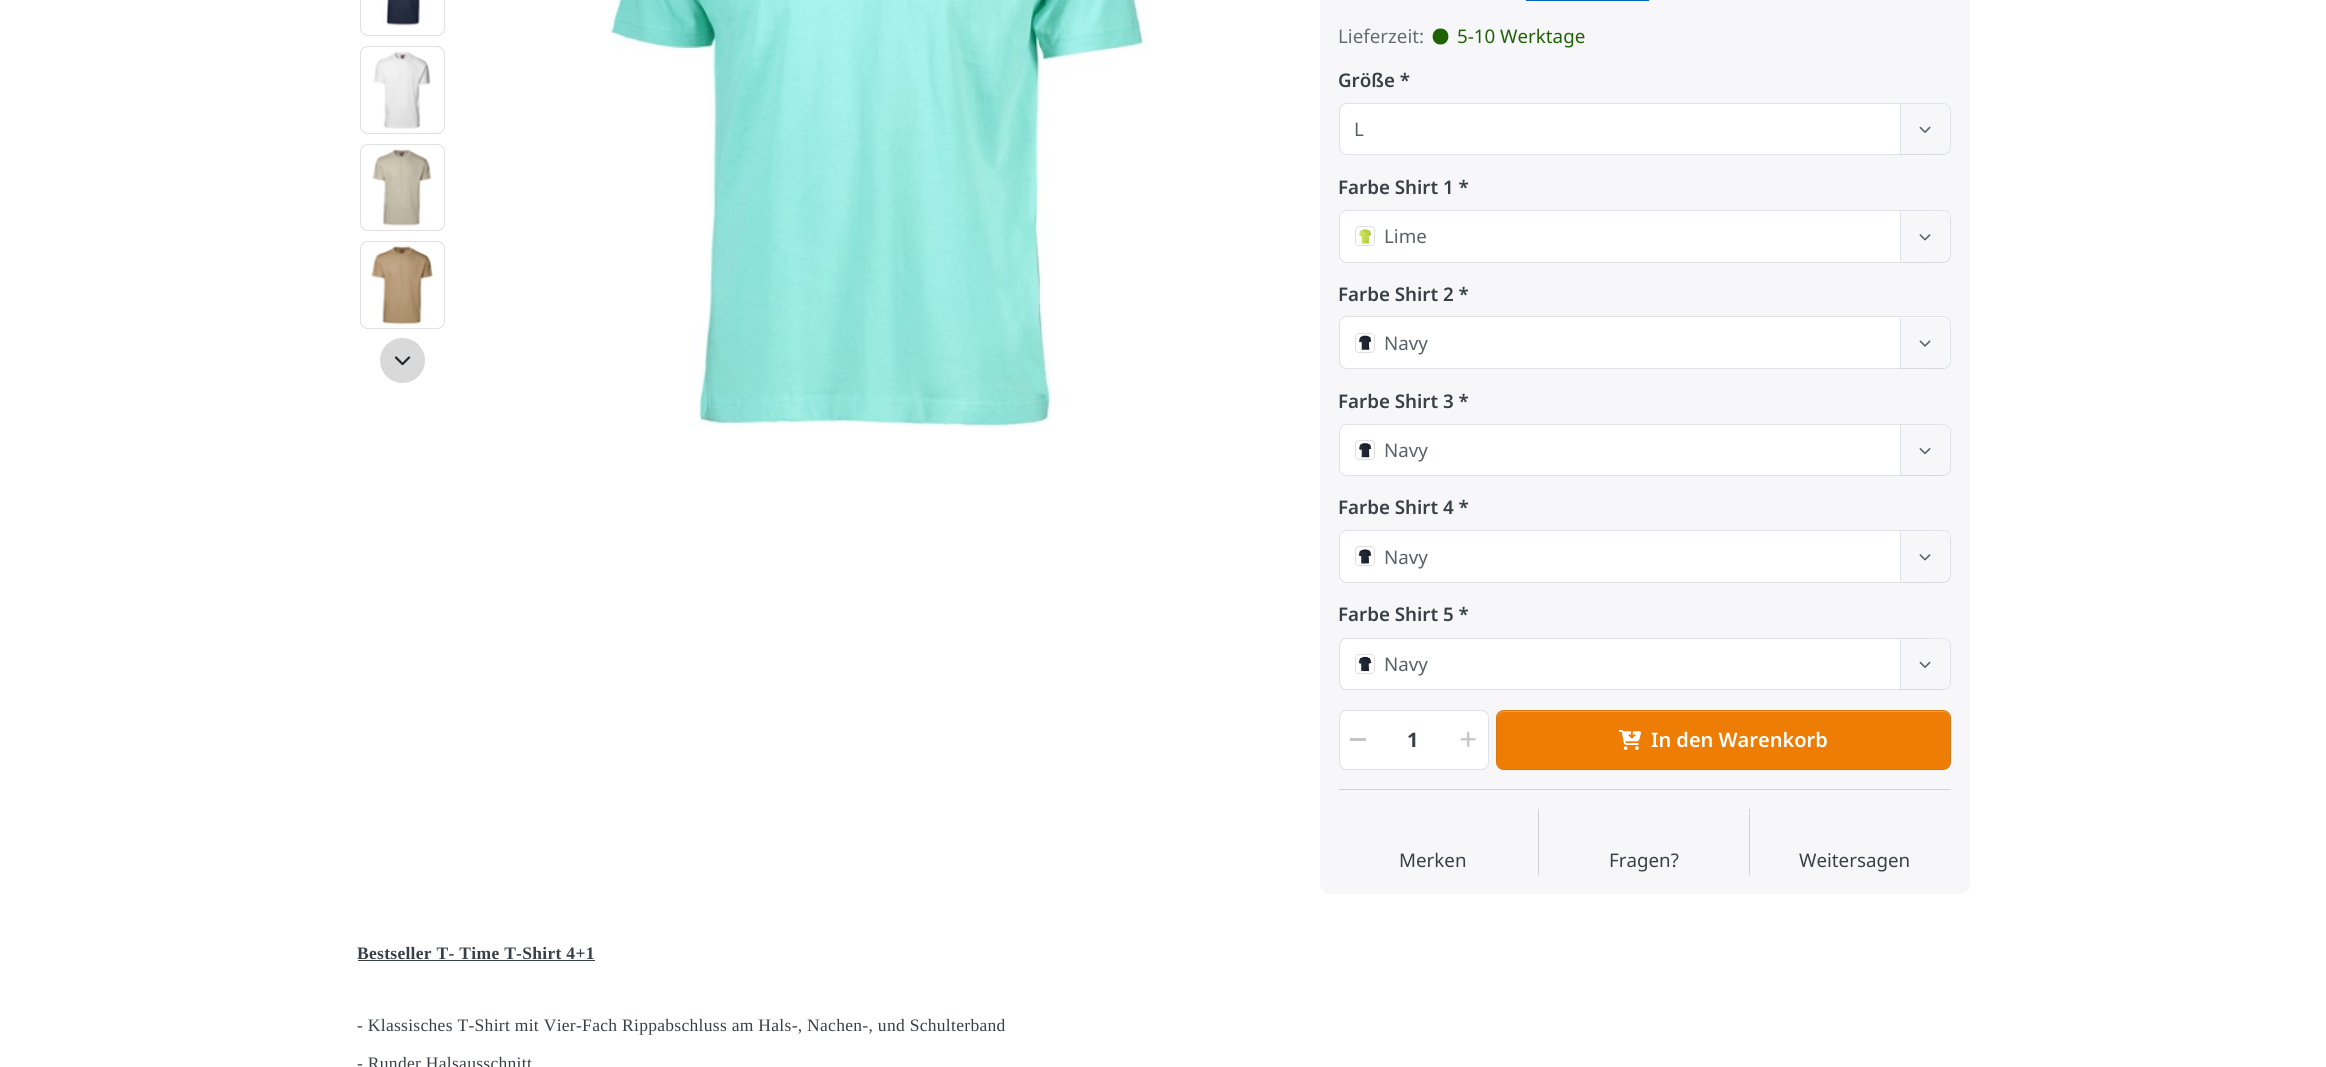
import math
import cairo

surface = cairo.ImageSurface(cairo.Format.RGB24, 2326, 1067)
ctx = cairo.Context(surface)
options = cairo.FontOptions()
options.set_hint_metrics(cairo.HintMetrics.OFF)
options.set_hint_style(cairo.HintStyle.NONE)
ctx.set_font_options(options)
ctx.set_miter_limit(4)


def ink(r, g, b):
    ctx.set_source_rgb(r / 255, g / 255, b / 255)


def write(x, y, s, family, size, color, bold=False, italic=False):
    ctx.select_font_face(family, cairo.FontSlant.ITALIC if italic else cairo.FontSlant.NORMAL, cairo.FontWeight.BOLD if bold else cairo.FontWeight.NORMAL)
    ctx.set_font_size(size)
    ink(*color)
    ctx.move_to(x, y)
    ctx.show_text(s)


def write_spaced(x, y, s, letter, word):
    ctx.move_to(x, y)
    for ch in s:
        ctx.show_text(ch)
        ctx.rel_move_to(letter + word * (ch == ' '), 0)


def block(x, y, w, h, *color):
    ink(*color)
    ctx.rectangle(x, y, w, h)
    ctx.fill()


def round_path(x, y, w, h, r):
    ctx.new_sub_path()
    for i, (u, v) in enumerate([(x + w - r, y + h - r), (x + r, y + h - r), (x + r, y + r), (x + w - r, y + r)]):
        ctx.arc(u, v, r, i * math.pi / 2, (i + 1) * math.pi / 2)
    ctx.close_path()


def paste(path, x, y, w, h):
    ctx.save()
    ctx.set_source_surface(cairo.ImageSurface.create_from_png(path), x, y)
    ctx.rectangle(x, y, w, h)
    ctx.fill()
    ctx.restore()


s1 = dict(family="Noto Sans", size=18.75, color=(103, 107, 113))
s2 = dict(family="Noto Sans", size=18.75, color=(31, 97, 5))
s3 = dict(family="Noto Sans SemiBold", size=18.75, color=(57, 63, 70))
s4 = dict(family="Noto Sans", size=18.75, color=(89, 97, 103))
s5 = dict(family="Noto Sans", size=20, color=(57, 63, 70), bold=True)
s6 = dict(family="Noto Sans SemiBold", size=20, color=(255, 255, 255))
s7 = dict(family="Noto Sans", size=18.75, color=(57, 63, 70))

ink(255, 255, 255)
ctx.paint()
round_path(360.5, -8.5, 84, 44, 7.5)
ink(224, 224, 224)
ctx.set_line_width(1)
ctx.stroke()
paste("pic1.png", 381, 0, 40, 26)
round_path(360.5, 46.5, 84, 87, 7.5)
ctx.stroke()
paste("pic2.png", 373, 52, 58, 77)
round_path(360.5, 144.5, 84, 86, 7.5)
ctx.stroke()
paste("pic3.png", 372, 149, 60, 77)
round_path(360.5, 241.5, 84, 87, 7.5)
ctx.stroke()
paste("pic4.png", 370, 246, 63, 79)
ink(217, 217, 217)
ctx.arc(402.5, 360.5, 22.5, 0, 2 * math.pi)
ctx.fill()
paste("pic5.png", 394, 356, 17, 10)
paste("pic6.png", 608, 0, 541, 429)
ink(247, 247, 249)
round_path(1320, -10, 650, 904, 10)
ctx.fill()
block(1526, 0, 123, 1, 0, 102, 192)
write(1338, 43, "Lieferzeit:", **s1)
ink(31, 97, 5)
ctx.new_path()
ctx.move_to(1440.5, 44.5)
ctx.curve_to(1451, 44.5, 1451, 28.5, 1440.5, 28.5)
ctx.curve_to(1430, 28.5, 1430, 44.5, 1440.5, 44.5)
ctx.close_path()
ctx.fill()
write(1457, 43, "5-10 Werktage", **s2)
write(1338, 87, "Größe *", **s3)
ink(255, 255, 255)
round_path(1339.5, 103.5, 611, 51, 7.5)
ctx.fill_preserve()
ink(222, 226, 230)
ctx.stroke()
write(1354, 136, "L", **s4)
ctx.set_source_rgba(0.133, 0.149, 0.165, 0.04)
ctx.new_path()
ctx.move_to(1900, 154)
ctx.line_to(1900, 155)
ctx.line_to(1928, 155)
ctx.curve_to(1936, 155, 1950, 158, 1950, 146)
ctx.curve_to(1950, 150, 1947, 154, 1942, 154)
ctx.close_path()
ctx.fill()
ink(247, 247, 249)
ctx.new_path()
ctx.move_to(1901, 104)
ctx.line_to(1942, 104)
ctx.curve_to(1946.5, 104, 1950, 107.5, 1950, 112)
ctx.line_to(1950, 146)
ctx.curve_to(1950, 150.5, 1946.5, 154, 1942, 154)
ctx.line_to(1901, 154)
ctx.close_path()
ctx.fill()
block(1900, 104, 1, 50, 222, 226, 230)
paste("pic7.png", 1919, 126, 12, 7)
write(1338, 194, "Farbe Shirt 1 *", **s3)
ink(255, 255, 255)
round_path(1339.5, 210.5, 611, 52, 7.5)
ctx.fill_preserve()
ink(222, 226, 230)
ctx.stroke()
round_path(1355.5, 226.5, 19, 19, 3.5)
ink(223, 223, 223)
ctx.stroke()
paste("pic8.png", 1356, 228, 18, 17)
write(1384, 243, "Lime", **s4)
ctx.set_source_rgba(0.133, 0.149, 0.165, 0.04)
ctx.new_path()
ctx.move_to(1900, 261)
ctx.line_to(1900, 263)
ctx.line_to(1928, 263)
ctx.curve_to(1937, 263, 1950, 266, 1950, 254)
ctx.curve_to(1950, 258, 1947, 261, 1942, 261)
ctx.close_path()
ctx.fill()
ink(247, 247, 249)
ctx.new_path()
ctx.move_to(1901, 211)
ctx.line_to(1942, 211)
ctx.curve_to(1946.5, 211, 1950, 214.5, 1950, 219)
ctx.line_to(1950, 253)
ctx.curve_to(1950, 257.5, 1946.5, 261, 1942, 261)
ctx.line_to(1901, 261)
ctx.close_path()
ctx.fill()
ctx.set_source_rgba(1, 1, 1, 0.25)
ctx.new_path()
ctx.move_to(1901, 212)
ctx.line_to(1942, 212)
ctx.curve_to(1947, 212, 1950, 216, 1950, 220)
ctx.curve_to(1950, 208, 1937, 211, 1928, 211)
ctx.line_to(1901, 211)
ctx.close_path()
ctx.fill()
block(1900, 211, 1, 50, 222, 226, 230)
paste("pic9.png", 1919, 234, 12, 7)
write(1338, 301, "Farbe Shirt 2 *", **s3)
ink(255, 255, 255)
round_path(1339.5, 316.5, 611, 52, 7.5)
ctx.fill_preserve()
ink(222, 226, 230)
ctx.stroke()
round_path(1355.5, 333.5, 19, 19, 3.5)
ink(223, 223, 223)
ctx.stroke()
paste("pic10.png", 1356, 334, 18, 17)
write(1384, 350, "Navy", **s4)
ctx.set_source_rgba(0.133, 0.149, 0.165, 0.04)
ctx.new_path()
ctx.move_to(1900, 368)
ctx.line_to(1900, 369)
ctx.line_to(1928, 369)
ctx.curve_to(1936, 369, 1950, 372, 1950, 360)
ctx.curve_to(1950, 364, 1947, 368, 1942, 368)
ctx.close_path()
ctx.fill()
ink(247, 247, 249)
ctx.new_path()
ctx.move_to(1901, 318)
ctx.line_to(1942, 318)
ctx.curve_to(1946.5, 318, 1950, 321.5, 1950, 326)
ctx.line_to(1950, 360)
ctx.curve_to(1950, 364.5, 1946.5, 368, 1942, 368)
ctx.line_to(1901, 368)
ctx.close_path()
ctx.fill()
block(1900, 318, 1, 50, 222, 226, 230)
paste("pic11.png", 1919, 340, 12, 7)
write(1338, 408, "Farbe Shirt 3 *", **s3)
ink(255, 255, 255)
round_path(1339.5, 424.5, 611, 51, 7.5)
ctx.fill_preserve()
ink(222, 226, 230)
ctx.stroke()
round_path(1355.5, 440.5, 19, 19, 3.5)
ink(223, 223, 223)
ctx.stroke()
paste("pic12.png", 1356, 443, 18, 16)
write(1384, 457, "Navy", **s4)
ctx.set_source_rgba(0.133, 0.149, 0.165, 0.04)
ctx.new_path()
ctx.move_to(1900, 475)
ctx.line_to(1900, 476)
ctx.line_to(1928, 476)
ctx.curve_to(1935, 476, 1950, 479, 1950, 468)
ctx.curve_to(1950, 472, 1947, 475, 1942, 475)
ctx.close_path()
ctx.fill()
ink(247, 247, 249)
ctx.new_path()
ctx.move_to(1901, 425)
ctx.line_to(1942, 425)
ctx.curve_to(1946.5, 425, 1950, 428.5, 1950, 433)
ctx.line_to(1950, 467)
ctx.curve_to(1950, 471.5, 1946.5, 475, 1942, 475)
ctx.line_to(1901, 475)
ctx.close_path()
ctx.fill()
ctx.set_source_rgba(1, 1, 1, 0.25)
ctx.new_path()
ctx.move_to(1901, 426)
ctx.line_to(1942, 426)
ctx.curve_to(1947, 426, 1950, 430, 1950, 434)
ctx.curve_to(1950, 422, 1937, 425, 1928, 425)
ctx.line_to(1901, 425)
ctx.close_path()
ctx.fill()
block(1900, 425, 1, 50, 222, 226, 230)
paste("pic13.png", 1919, 448, 12, 7)
write(1338, 514, "Farbe Shirt 4 *", **s3)
ink(255, 255, 255)
round_path(1339.5, 530.5, 611, 52, 7.5)
ctx.fill_preserve()
ink(222, 226, 230)
ctx.stroke()
round_path(1355.5, 546.5, 19, 19, 3.5)
ink(223, 223, 223)
ctx.stroke()
paste("pic14.png", 1356, 549, 18, 16)
write(1384, 564, "Navy", **s4)
ctx.set_source_rgba(0.133, 0.149, 0.165, 0.04)
ctx.new_path()
ctx.move_to(1900, 581)
ctx.line_to(1900, 583)
ctx.line_to(1928, 583)
ctx.curve_to(1937, 583, 1950, 586, 1950, 574)
ctx.curve_to(1950, 578, 1947, 581, 1942, 581)
ctx.close_path()
ctx.fill()
ink(247, 247, 249)
ctx.new_path()
ctx.move_to(1901, 531)
ctx.line_to(1942, 531)
ctx.curve_to(1946.5, 531, 1950, 534.5, 1950, 539)
ctx.line_to(1950, 573)
ctx.curve_to(1950, 577.5, 1946.5, 581, 1942, 581)
ctx.line_to(1901, 581)
ctx.close_path()
ctx.fill()
ctx.set_source_rgba(1, 1, 1, 0.25)
ctx.new_path()
ctx.move_to(1901, 532)
ctx.line_to(1942, 532)
ctx.curve_to(1947, 532, 1950, 536, 1950, 540)
ctx.curve_to(1950, 528, 1937, 531, 1928, 531)
ctx.line_to(1901, 531)
ctx.close_path()
ctx.fill()
block(1900, 531, 1, 50, 222, 226, 230)
paste("pic9.png", 1919, 554, 12, 7)
write(1338, 621, "Farbe Shirt 5 *", **s3)
ink(255, 255, 255)
round_path(1339.5, 638.5, 611, 51, 7.5)
ctx.fill_preserve()
ink(222, 226, 230)
ctx.stroke()
round_path(1355.5, 654.5, 19, 19, 3.5)
ink(223, 223, 223)
ctx.stroke()
paste("pic15.png", 1356, 655, 18, 18)
write(1384, 671, "Navy", **s4)
ctx.set_source_rgba(0.133, 0.149, 0.165, 0.04)
ctx.new_path()
ctx.move_to(1900, 689)
ctx.line_to(1900, 690)
ctx.line_to(1928, 690)
ctx.curve_to(1936, 690, 1950, 693, 1950, 681)
ctx.curve_to(1950, 685, 1947, 689, 1942, 689)
ctx.close_path()
ctx.fill()
ink(247, 247, 249)
ctx.new_path()
ctx.move_to(1901, 639)
ctx.line_to(1942, 639)
ctx.curve_to(1946.5, 639, 1950, 642.5, 1950, 647)
ctx.line_to(1950, 681)
ctx.curve_to(1950, 685.5, 1946.5, 689, 1942, 689)
ctx.line_to(1901, 689)
ctx.close_path()
ctx.fill()
ink(249, 249, 251)
ctx.new_path()
ctx.move_to(1901, 640)
ctx.line_to(1942, 640)
ctx.curve_to(1947, 640, 1950, 643, 1950, 648)
ctx.curve_to(1950, 636, 1937, 639, 1928, 639)
ctx.line_to(1901, 639)
ctx.close_path()
ctx.fill()
block(1900, 639, 1, 50, 222, 226, 230)
paste("pic7.png", 1919, 661, 12, 7)
ink(255, 255, 255)
round_path(1340, 711, 148, 58, 6)
ctx.fill()
round_path(1339.5, 710.5, 149, 59, 7.5)
ink(222, 226, 230)
ctx.stroke()
block(1350, 738, 16, 3, 196, 197, 200)
write(1407, 747, "1", **s5)
paste("pic16.png", 1460, 731, 16, 16)
ink(238, 239, 241)
ctx.new_path()
ctx.move_to(1496, 717)
ctx.line_to(1496, 763)
ctx.curve_to(1496, 767, 1500, 771, 1504, 771)
ctx.line_to(1943, 771)
ctx.curve_to(1946, 771, 1949, 769, 1951, 766)
ctx.curve_to(1949, 768, 1947, 770, 1944, 770)
ctx.line_to(1504, 770)
ctx.curve_to(1500, 770, 1496, 767, 1496, 762)
ctx.close_path()
ctx.fill()
ink(238, 125, 5)
round_path(1496, 710, 455, 60, 8)
ctx.fill()
ink(242, 158, 68)
ctx.new_path()
ctx.move_to(1504, 712)
ctx.line_to(1944, 712)
ctx.curve_to(1947, 712, 1950, 715, 1950, 719)
ctx.line_to(1950, 717)
ctx.curve_to(1950, 714, 1947, 711, 1944, 711)
ctx.line_to(1504, 711)
ctx.curve_to(1501, 711, 1498, 714, 1498, 717)
ctx.line_to(1498, 719)
ctx.curve_to(1498, 715, 1500, 712, 1504, 712)
ctx.close_path()
ctx.fill()
round_path(1496.5, 710.5, 454, 59, 7.5)
ctx.set_source_rgba(0.349, 0.38, 0.404, 0.15)
ctx.stroke()
paste("pic17.png", 1618, 730, 23, 20)
write(1651, 747, "In den Warenkorb", **s6)
block(1339, 789, 612, 1, 210, 210, 212)
block(1538, 809, 1, 66, 210, 210, 212)
write(1399, 867, "Merken", **s7)
block(1749, 809, 1, 66, 210, 210, 212)
write(1609, 867, "Fragen?", **s7)
write(1799, 867, "Weitersagen", **s7)
ctx.select_font_face("Liberation Serif", cairo.FontSlant.NORMAL, cairo.FontWeight.BOLD)
ctx.set_font_size(17.5)
write_spaced(357, 959, "Bestseller T- Time T-Shirt 4+1", 0.3, 0)
block(358, 960, 237, 1, 57, 63, 70)
ctx.select_font_face("Liberation Serif")
write_spaced(357, 1031, "- Klassisches T-Shirt mit Vier-Fach Rippabschluss am Hals-, Nachen-, und Schulterband", 0.3, 0)
write_spaced(357, 1069, "- Runder Halsausschnitt", 0.3, 0)
surface.write_to_png("screenshot.png")
